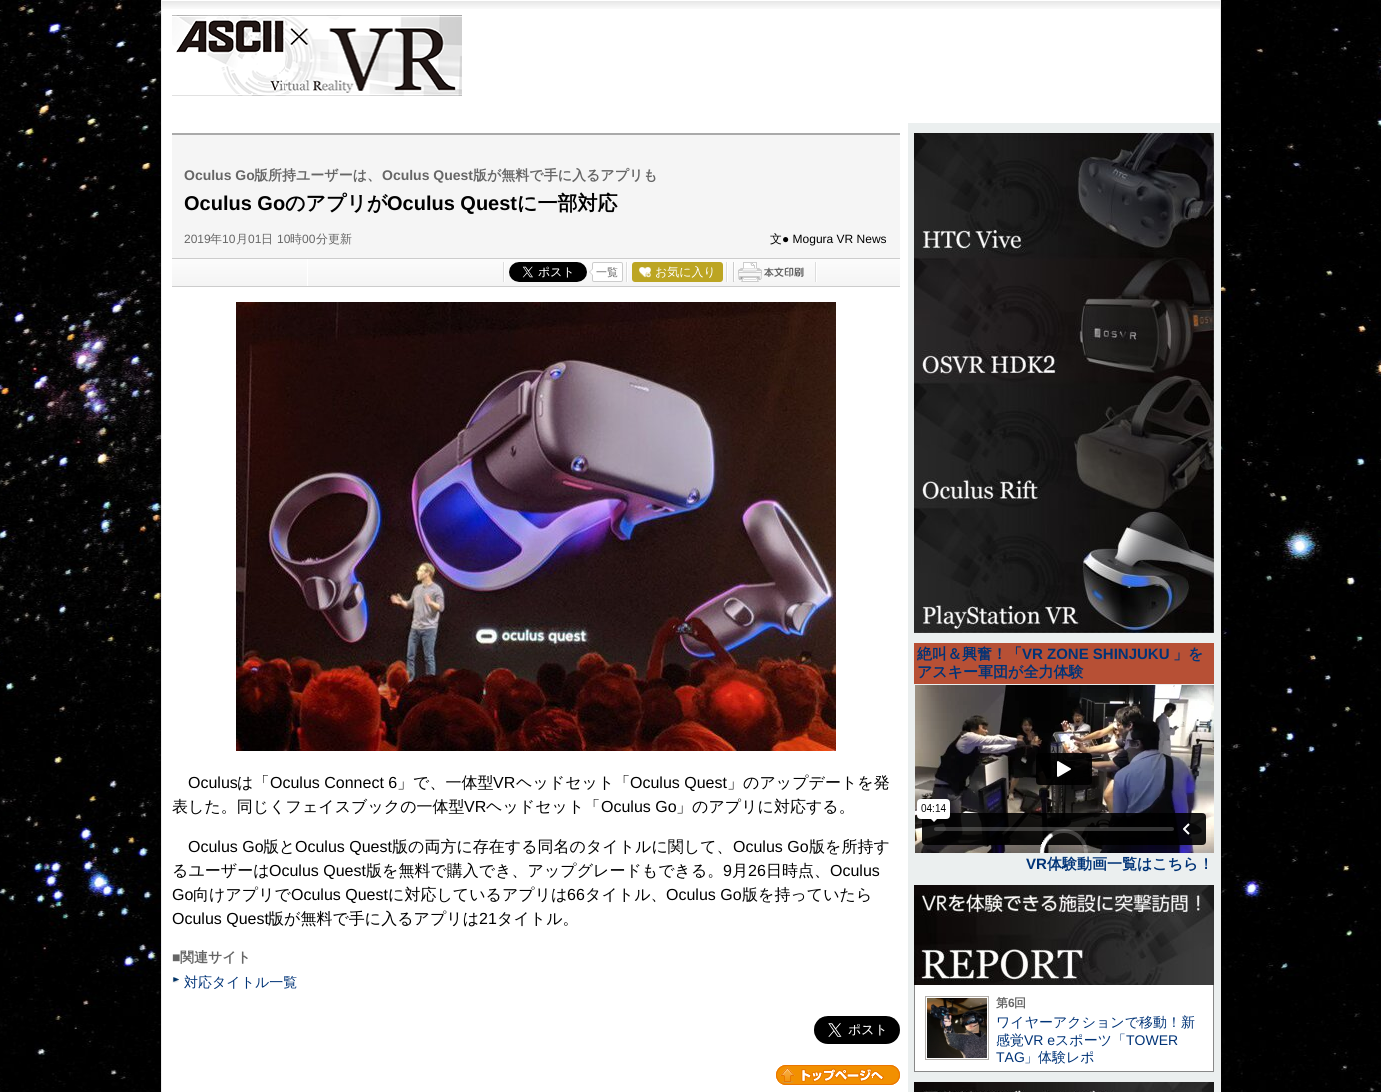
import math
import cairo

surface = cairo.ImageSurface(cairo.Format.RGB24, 1381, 1092)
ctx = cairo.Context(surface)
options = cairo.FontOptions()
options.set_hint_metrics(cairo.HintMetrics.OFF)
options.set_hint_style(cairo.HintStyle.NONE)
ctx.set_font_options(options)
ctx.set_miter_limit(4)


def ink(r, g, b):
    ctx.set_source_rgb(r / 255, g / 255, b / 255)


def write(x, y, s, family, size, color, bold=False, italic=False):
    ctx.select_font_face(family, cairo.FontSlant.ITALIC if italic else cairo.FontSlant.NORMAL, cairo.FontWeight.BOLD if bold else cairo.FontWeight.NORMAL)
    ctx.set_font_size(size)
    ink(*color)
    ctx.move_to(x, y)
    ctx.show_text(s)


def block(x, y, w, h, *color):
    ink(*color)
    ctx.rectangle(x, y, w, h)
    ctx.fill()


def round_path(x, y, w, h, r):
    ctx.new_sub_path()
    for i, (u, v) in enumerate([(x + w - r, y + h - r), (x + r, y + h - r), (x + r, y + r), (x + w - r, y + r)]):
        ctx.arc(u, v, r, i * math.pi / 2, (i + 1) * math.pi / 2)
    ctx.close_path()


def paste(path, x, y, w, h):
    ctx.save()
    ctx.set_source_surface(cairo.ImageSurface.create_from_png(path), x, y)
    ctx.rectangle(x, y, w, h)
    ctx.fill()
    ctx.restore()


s1 = dict(family="Liberation Sans", size=14, color=(102, 102, 102), bold=True)
s2 = dict(family="WenQuanYi Zen Hei", size=14, color=(102, 102, 102), bold=True)
s3 = dict(family="Liberation Sans", size=20, color=(0, 0, 0), bold=True)
s4 = dict(family="WenQuanYi Zen Hei", size=20, color=(0, 0, 0), bold=True)
s5 = dict(family="Liberation Sans", size=12, color=(102, 102, 102))
s6 = dict(family="WenQuanYi Zen Hei Medium", size=12, color=(102, 102, 102))
s7 = dict(family="WenQuanYi Zen Hei Medium", size=12, color=(0, 0, 0))
s8 = dict(family="Liberation Sans", size=12, color=(0, 0, 0))
s9 = dict(family="WenQuanYi Zen Hei Medium", size=11, color=(102, 102, 102))
s10 = dict(family="WenQuanYi Zen Hei Medium", size=12, color=(255, 255, 255))
s11 = dict(family="Liberation Sans", size=16, color=(0, 0, 0))
s12 = dict(family="WenQuanYi Zen Hei Medium", size=16, color=(0, 0, 0))
s13 = dict(family="WenQuanYi Zen Hei Medium", size=14, color=(0, 51, 119))
s14 = dict(family="WenQuanYi Zen Hei", size=15, color=(0, 51, 119), bold=True)
s15 = dict(family="Liberation Sans", size=15, color=(0, 51, 119), bold=True)
s16 = dict(family="WenQuanYi Zen Hei", size=12, color=(102, 102, 102), bold=True)
s17 = dict(family="Liberation Sans", size=12, color=(102, 102, 102), bold=True)
s18 = dict(family="Liberation Sans", size=14, color=(0, 51, 119))

ink(255, 255, 255)
ctx.paint()
paste("pic1.png", 0, 0, 1381, 1092)
block(162, 123, 746, 969, 255, 255, 255)
block(908, 123, 312, 969, 235, 239, 239)
block(1220, 0, 1, 1092, 238, 238, 238)
block(161, 0, 1, 1092, 238, 238, 238)
block(162, 0, 1058, 123, 255, 255, 255)
paste("pic2.png", 162, 1, 1058, 8)
paste("pic3.png", 172, 15, 113, 81)
paste("pic4.png", 285, 15, 177, 81)
block(172, 135, 728, 123, 245, 245, 245)
block(172, 133, 728, 2, 170, 170, 170)
block(172, 286, 728, 1, 204, 204, 204)
write(184, 180, "Oculus Go", **s1)
write(254, 180, "版所持ユーザーは、", **s2)
write(382, 180, "Oculus Quest", **s1)
write(473, 180, "版が無料で手に入るアプリも", **s2)
write(184, 210, "Oculus Go", **s3)
write(285, 210, "のアプリが", **s4)
write(387, 210, "Oculus Quest", **s3)
write(517, 210, "に一部対応", **s4)
write(184, 243, "2019", **s5)
write(210, 243, "年", **s6)
write(222, 243, "10", **s5)
write(236, 243, "月", **s6)
write(248, 243, "01", **s5)
write(261, 243, "日", **s6)
write(277, 243, "10", **s5)
write(290, 243, "時", **s6)
write(302, 243, "00", **s5)
write(316, 243, "分更新", **s6)
write(770, 243, "文", **s7)
write(782, 243, "● Mogura VR News", **s8)
paste("pic5.png", 172, 258, 728, 28)
paste("pic6.png", 503, 262, 2, 20)
paste("pic6.png", 626, 262, 2, 20)
paste("pic7.png", 509, 262, 78, 20)
ink(255, 255, 255)
round_path(592.5, 262.5, 30, 19, 1.5)
ctx.fill_preserve()
ink(204, 204, 204)
ctx.set_line_width(1)
ctx.stroke()
ctx.new_path()
ctx.move_to(593, 268)
ctx.line_to(593, 276)
ctx.line_to(589, 272)
ctx.close_path()
ctx.fill()
write(596, 276, "一覧", **s9)
ink(255, 255, 255)
ctx.new_path()
ctx.move_to(593, 269)
ctx.line_to(593, 275)
ctx.line_to(590, 272)
ctx.close_path()
ctx.fill()
paste("pic6.png", 726, 262, 2, 20)
ink(188, 165, 35)
round_path(632, 262, 91, 20, 3)
ctx.fill()
paste("pic8.png", 639, 267, 12, 11)
write(655, 276, "お気に入り", **s10)
paste("pic6.png", 815, 262, 2, 20)
paste("pic9.png", 733, 262, 71, 20)
paste("pic10.png", 236, 302, 600, 449)
write(188, 788, "Oculus", **s11)
write(237, 788, "は「", **s12)
write(270, 788, "Oculus Connect 6", **s11)
write(397, 788, "」で、一体型", **s12)
write(493, 788, "VR", **s11)
write(516, 788, "ヘッドセット「", **s12)
write(630, 788, "Oculus Quest", **s11)
write(727, 788, "」のアップデートを発", **s12)
write(172, 812, "表した。同じくフェイスブックの一体型", **s12)
write(464, 812, "VR", **s11)
write(486, 812, "ヘッドセット「", **s12)
write(601, 812, "Oculus Go", **s11)
write(676, 812, "」のアプリに対応する。", **s12)
write(188, 852, "Oculus Go", **s11)
write(263, 852, "版と", **s12)
write(295, 852, "Oculus Quest", **s11)
write(392, 852, "版の両方に存在する同名のタイトルに関して、", **s12)
write(733, 852, "Oculus Go", **s11)
write(809, 852, "版を所持す", **s12)
write(172, 876, "るユーザーは", **s12)
write(269, 876, "Oculus Quest", **s11)
write(366, 876, "版を無料で購入でき、アップグレードもできる。", **s12)
write(723, 876, "9", **s11)
write(732, 876, "月", **s12)
write(748, 876, "26", **s11)
write(766, 876, "日時点、", **s12)
write(830, 876, "Oculus", **s11)
write(172, 900, "Go", **s11)
write(193, 900, "向けアプリで", **s12)
write(291, 900, "Oculus Quest", **s11)
write(388, 900, "に対応しているアプリは", **s12)
write(567, 900, "66", **s11)
write(585, 900, "タイトル、", **s12)
write(666, 900, "Oculus Go", **s11)
write(742, 900, "版を持っていたら", **s12)
write(172, 924, "Oculus Quest", **s11)
write(268, 924, "版が無料で手に入るアプリは", **s12)
write(479, 924, "21", **s11)
write(497, 924, "タイトル。", **s12)
write(172, 962, "■", **s1)
write(180, 962, "関連サイト", **s2)
paste("pic11.png", 172, 977, 7, 6)
write(184, 987, "対応タイトル一覧", **s13)
paste("pic12.png", 814, 1016, 86, 28)
paste("pic13.png", 776, 1065, 124, 20)
paste("pic14.png", 914, 133, 300, 500)
block(914, 643, 300, 41, 183, 80, 53)
write(917, 659, "絶叫＆興奮！「", **s14)
write(1022, 659, "VR ZONE SHINJUKU", **s15)
write(1173, 659, "」を", **s14)
write(917, 677, "アスキー軍団が全力体験", **s14)
paste("pic15.png", 915, 685, 299, 168)
write(1026, 869, "VR", **s15)
write(1047, 869, "体験動画一覧はこちら！", **s14)
block(915, 985, 298, 86, 255, 255, 255)
paste("pic16.png", 914, 885, 300, 100)
block(1213, 985, 1, 87, 136, 136, 136)
block(914, 1071, 300, 1, 136, 136, 136)
block(914, 985, 1, 87, 136, 136, 136)
ctx.rectangle(925.5, 996.5, 63, 63)
ink(179, 175, 171)
ctx.stroke()
paste("pic17.png", 927, 998, 60, 60)
write(996, 1007, "第", **s16)
write(1008, 1007, "6", **s17)
write(1014, 1007, "回", **s16)
write(996, 1027, "ワイヤーアクションで移動！新", **s13)
write(996, 1045, "感覚", **s13)
write(1024, 1045, "VR e", **s18)
write(1055, 1045, "スポーツ「", **s13)
write(1126, 1045, "TOWER", **s18)
write(996, 1062, "TAG", **s18)
write(1024, 1062, "」体験レポ", **s13)
paste("pic18.png", 914, 1082, 300, 10)
surface.write_to_png("screenshot.png")
